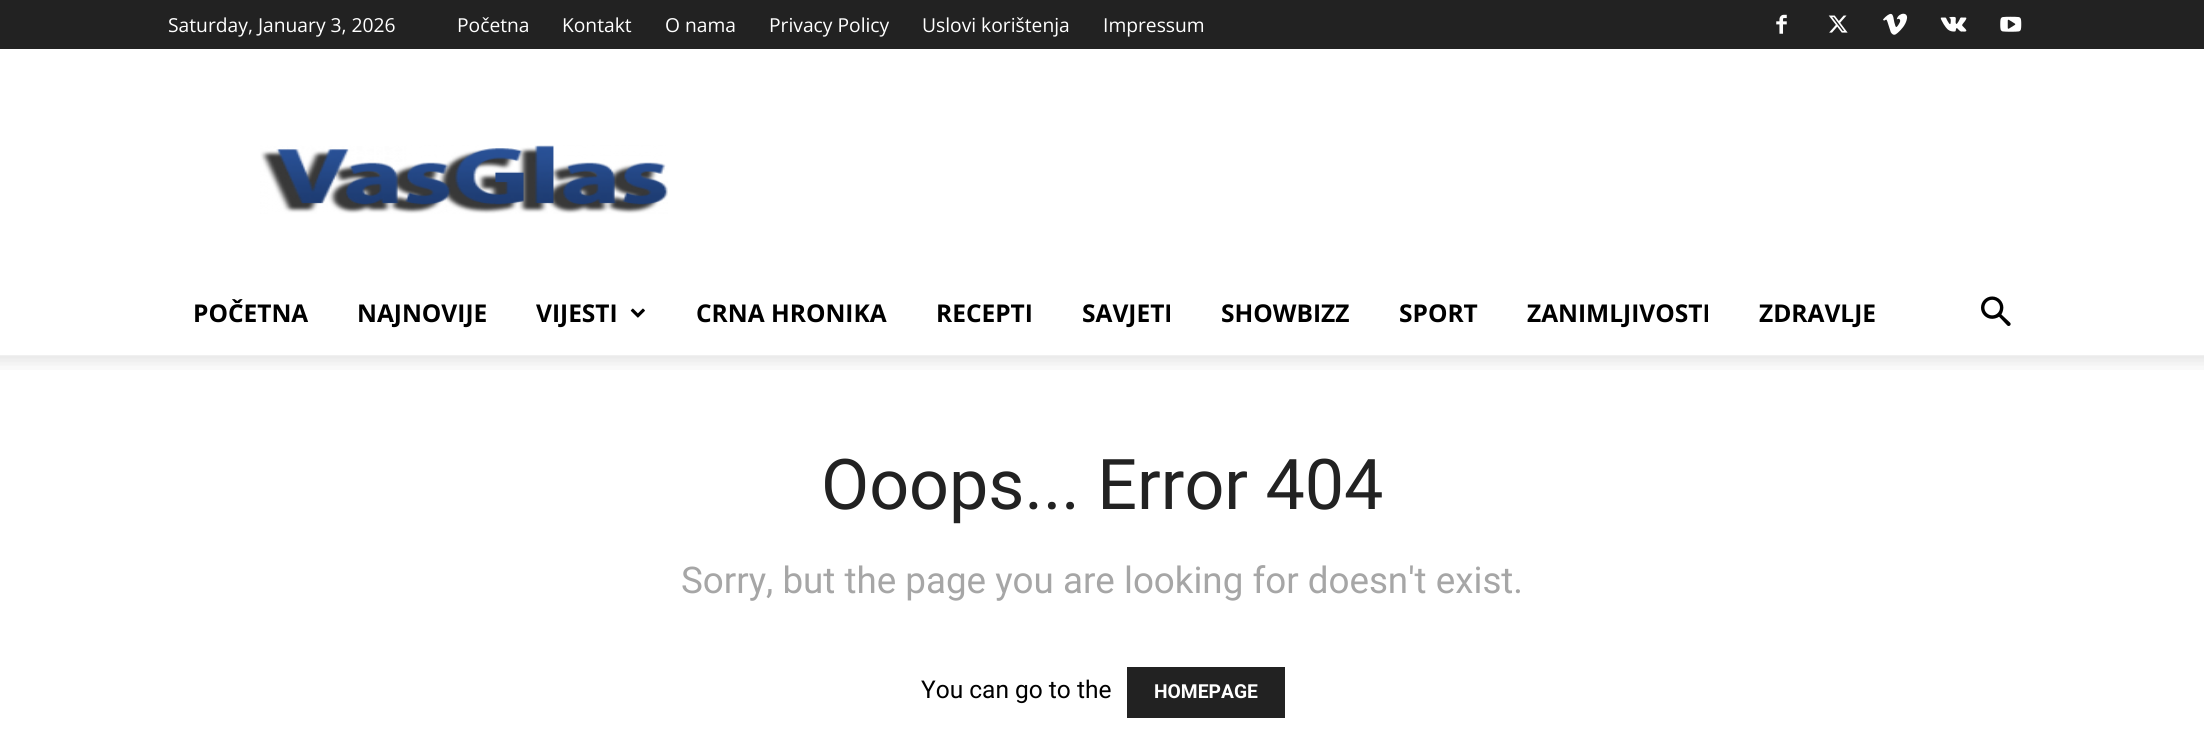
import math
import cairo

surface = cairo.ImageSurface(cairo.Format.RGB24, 2204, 729)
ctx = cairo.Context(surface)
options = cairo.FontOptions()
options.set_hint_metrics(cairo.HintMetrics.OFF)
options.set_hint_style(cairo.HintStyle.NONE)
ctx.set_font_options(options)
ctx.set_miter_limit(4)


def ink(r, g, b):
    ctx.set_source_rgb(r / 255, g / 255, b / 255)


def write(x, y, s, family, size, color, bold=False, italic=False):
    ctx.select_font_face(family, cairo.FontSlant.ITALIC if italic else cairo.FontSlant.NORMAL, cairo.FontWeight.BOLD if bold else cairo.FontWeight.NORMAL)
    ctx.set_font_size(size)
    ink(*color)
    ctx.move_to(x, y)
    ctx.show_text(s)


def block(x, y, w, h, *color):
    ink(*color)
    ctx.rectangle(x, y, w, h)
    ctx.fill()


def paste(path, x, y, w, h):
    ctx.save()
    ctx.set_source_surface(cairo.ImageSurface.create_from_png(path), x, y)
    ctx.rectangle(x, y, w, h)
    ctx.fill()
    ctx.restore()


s1 = dict(family="Open Sans", size=19.25, color=(255, 255, 255))
s2 = dict(family="Open Sans", size=24.5, color=(0, 0, 0), bold=True)
s3 = dict(family="Roboto", size=70, color=(34, 34, 34))
s4 = dict(family="Roboto", size=36.75, color=(166, 166, 166))
s5 = dict(family="Roboto", size=24.5, color=(0, 0, 0))
s6 = dict(family="Roboto", size=19.25, color=(255, 255, 255), bold=True)

ink(255, 255, 255)
ctx.paint()
block(0, 0, 2204, 49, 34, 34, 34)
write(168, 32, "Saturday, January 3, 2026", **s1)
write(457, 32, "Početna", **s1)
write(562, 32, "Kontakt", **s1)
write(665, 32, "O nama", **s1)
write(769, 32, "Privacy Policy", **s1)
write(922, 32, "Uslovi korištenja", **s1)
write(1103, 32, "Impressum", **s1)
paste("pic1.png", 1776, 14, 11, 20)
paste("pic2.png", 1828, 15, 20, 18)
paste("pic3.png", 1883, 13, 25, 22)
paste("pic4.png", 1940, 16, 27, 16)
paste("pic5.png", 2000, 16, 22, 16)
paste("pic6.png", 260, 145, 408, 69)
write(193, 322, "POČETNA", **s2)
write(357, 322, "NAJNOVIJE", **s2)
write(536, 322, "VIJESTI", **s2)
paste("pic7.png", 630, 308, 15, 10)
write(696, 322, "CRNA HRONIKA", **s2)
write(936, 322, "RECEPTI", **s2)
write(1082, 322, "SAVJETI", **s2)
write(1221, 322, "SHOWBIZZ", **s2)
write(1399, 322, "SPORT", **s2)
write(1527, 322, "ZANIMLJIVOSTI", **s2)
write(1759, 322, "ZDRAVLJE", **s2)
paste("pic8.png", 1981, 296, 30, 30)
paste("pic9.png", 0, 355, 2204, 15)
write(821, 509, "Ooops... Error 404", **s3)
write(681, 593, "Sorry, but the page you are looking for doesn't exist.", **s4)
write(921, 698, "You can go to the", **s5)
block(1127, 667, 158, 51, 34, 34, 34)
write(1154, 698, "HOMEPAGE", **s6)
surface.write_to_png("screenshot.png")
